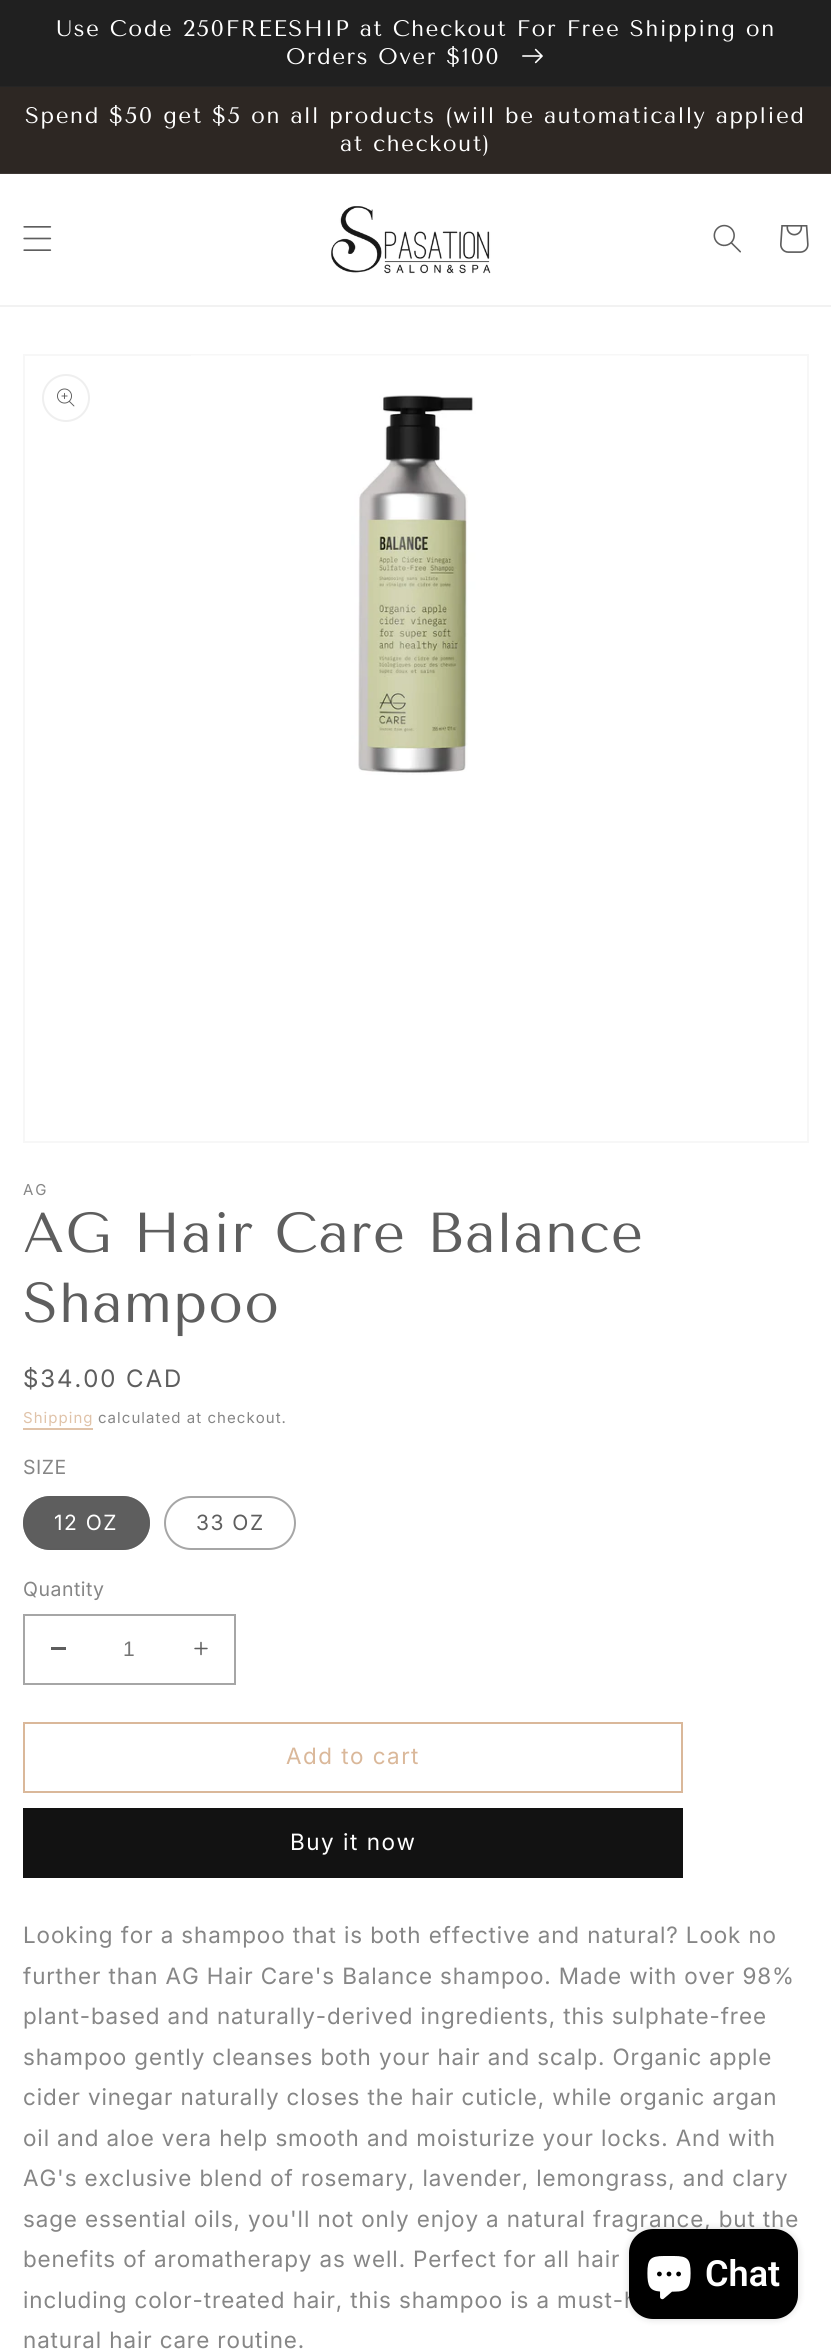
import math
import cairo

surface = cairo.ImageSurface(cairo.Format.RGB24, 831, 2350)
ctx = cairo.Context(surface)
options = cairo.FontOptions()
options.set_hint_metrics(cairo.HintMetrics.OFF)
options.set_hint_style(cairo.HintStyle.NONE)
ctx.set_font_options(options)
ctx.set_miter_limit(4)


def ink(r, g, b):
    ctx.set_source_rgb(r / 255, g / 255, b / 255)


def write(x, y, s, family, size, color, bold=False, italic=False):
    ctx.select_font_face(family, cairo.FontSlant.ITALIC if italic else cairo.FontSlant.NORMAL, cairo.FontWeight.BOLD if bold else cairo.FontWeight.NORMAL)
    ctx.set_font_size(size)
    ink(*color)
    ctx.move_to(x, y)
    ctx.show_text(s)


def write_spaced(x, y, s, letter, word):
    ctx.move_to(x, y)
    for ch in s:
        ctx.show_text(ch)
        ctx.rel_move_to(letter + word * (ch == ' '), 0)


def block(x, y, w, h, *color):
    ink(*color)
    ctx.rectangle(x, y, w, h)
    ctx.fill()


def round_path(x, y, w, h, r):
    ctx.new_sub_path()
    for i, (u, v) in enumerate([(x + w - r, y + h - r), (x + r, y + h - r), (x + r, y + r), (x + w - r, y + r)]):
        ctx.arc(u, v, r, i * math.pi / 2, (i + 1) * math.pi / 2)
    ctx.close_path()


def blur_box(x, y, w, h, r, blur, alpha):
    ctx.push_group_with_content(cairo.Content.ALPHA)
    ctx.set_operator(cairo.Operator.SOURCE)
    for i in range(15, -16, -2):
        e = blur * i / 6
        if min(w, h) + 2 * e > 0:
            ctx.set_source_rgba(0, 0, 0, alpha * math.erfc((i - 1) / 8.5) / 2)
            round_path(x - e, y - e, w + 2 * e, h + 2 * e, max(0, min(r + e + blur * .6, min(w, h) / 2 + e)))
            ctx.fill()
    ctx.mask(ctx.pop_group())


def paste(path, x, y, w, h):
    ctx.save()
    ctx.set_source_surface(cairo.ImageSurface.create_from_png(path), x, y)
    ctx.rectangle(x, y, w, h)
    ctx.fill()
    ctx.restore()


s1 = dict(family="Liberation Sans", size=21, color=(118, 118, 118))
s2 = dict(family="Roboto SemiBold", size=36, color=(255, 255, 255))

ink(255, 255, 255)
ctx.paint()
block(0, 86, 831, 1, 37, 37, 37)
block(0, 0, 831, 86, 32, 32, 32)
ctx.select_font_face("Tenor Sans")
ctx.set_font_size(22.5)
ink(255, 255, 255)
write_spaced(56, 36, "Use Code 250FREESHIP at Checkout For Free Shipping on", 1.5, 0)
write_spaced(286, 64, "Orders Over $100", 1.5, 0)
paste("pic1.png", 522, 48, 21, 16)
block(0, 87, 831, 86, 45, 39, 35)
block(0, 173, 831, 1, 62, 56, 53)
ink(255, 255, 255)
write_spaced(25, 123, "Spend $50 get $5 on all products (will be automatically applied", 1.5, 0)
write_spaced(340, 151, "at checkout)", 1.5, 0)
block(0, 305, 831, 2, 242, 242, 242)
paste("pic2.png", 23, 226, 29, 25)
paste("pic3.png", 331, 206, 160, 68)
paste("pic4.png", 713, 224, 28, 29)
paste("pic5.png", 780, 225, 29, 28)
ctx.rectangle(24, 355, 784, 787)
ink(247, 247, 247)
ctx.stroke()
paste("pic6.png", 191, 355, 449, 420)
ctx.arc(66, 398, 23, 0, 2 * math.pi)
ink(239, 239, 239)
ctx.stroke()
paste("pic7.png", 57, 388, 18, 19)
ctx.select_font_face("Inter")
ctx.set_font_size(15)
ink(134, 134, 134)
write_spaced(23, 1195, "AG", 2, 0)
ctx.select_font_face("Tenor Sans")
ctx.set_font_size(56.25)
ink(94, 94, 94)
write_spaced(23, 1252, "AG Hair Care Balance", 1.1, 0)
write_spaced(23, 1322, "Shampoo", 1.1, 0)
ctx.select_font_face("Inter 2")
ctx.set_font_size(24)
write_spaced(23, 1387, "$34.00 CAD", 2, 0)
ctx.select_font_face("Inter")
ctx.set_font_size(15)
ink(224, 195, 169)
write_spaced(23, 1423, "Shipping", 1.05, 0)
block(23, 1428, 70, 2, 224, 195, 169)
ink(134, 134, 134)
write_spaced(98, 1423, "calculated at checkout.", 1.05, 0)
ctx.set_font_size(19.5)
write_spaced(23, 1474, "SIZE", 0.5, 0)
ink(94, 94, 94)
round_path(23, 1496, 127, 54, 27)
ctx.fill()
round_path(24, 1497, 125, 52, 26)
ctx.set_source_rgba(0.369, 0.369, 0.369, 0.55)
ctx.stroke()
ctx.set_font_size(21)
ink(255, 255, 255)
write_spaced(54, 1530, "12 OZ", 1.5, 0)
round_path(165, 1497, 130, 52, 26)
ink(166, 166, 166)
ctx.stroke()
ink(94, 94, 94)
write_spaced(196, 1530, "33 OZ", 1.5, 0)
ctx.set_font_size(19.5)
ink(134, 134, 134)
write_spaced(23, 1596, "Quantity", 0.5, 0)
block(51, 1647, 15, 3, 94, 94, 94)
paste("pic8.png", 194, 1641, 14, 15)
ctx.rectangle(24, 1615, 211, 69)
ink(166, 166, 166)
ctx.stroke()
write(123, 1656, "1", **s1)
ctx.rectangle(24, 1723, 658, 69)
ink(218, 184, 154)
ctx.stroke()
ctx.select_font_face("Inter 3")
ctx.set_font_size(22.5)
write_spaced(286, 1764, "Add to cart", 1.5, 0)
block(23, 1808, 660, 70, 18, 18, 18)
ctx.select_font_face("Inter")
ink(255, 255, 255)
write_spaced(290, 1850, "Buy it now", 1.5, 0)
ctx.select_font_face("Inter 3")
ink(134, 134, 134)
write_spaced(23, 1943, "Looking for a shampoo that is both effective and natural? Look no", 0.9, 0)
write_spaced(23, 1984, "further than AG Hair Care's Balance shampoo. Made with over 98%", 0.9, 0)
write_spaced(23, 2024, "plant-based and naturally-derived ingredients, this sulphate-free", 0.9, 0)
write_spaced(23, 2065, "shampoo gently cleanses both your hair and scalp. Organic apple", 0.9, 0)
write_spaced(23, 2105, "cider vinegar naturally closes the hair cuticle, while organic argan", 0.9, 0)
write_spaced(23, 2146, "oil and aloe vera help smooth and moisturize your locks. And with", 0.9, 0)
write_spaced(23, 2186, "AG's exclusive blend of rosemary, lavender, lemongrass, and clary", 0.9, 0)
write_spaced(23, 2227, "sage essential oils, you'll not only enjoy a natural fragrance, but the", 0.9, 0)
write_spaced(23, 2267, "benefits of aromatherapy as well. Perfect for all hair", 0.9, 0)
write_spaced(23, 2308, "including color-treated hair, this shampoo is a must-h", 0.9, 0)
write_spaced(23, 2348, "natural hair care routine.", 0.9, 0)
ink(0, 0, 0)
blur_box(629, 2229, 169, 90, 24, 4, 0.15)
ink(0, 0, 0)
round_path(629, 2229, 169, 90, 24)
ctx.fill()
paste("pic9.png", 647, 2256, 44, 44)
write(705, 2286, "Chat", **s2)
surface.write_to_png("screenshot.png")
